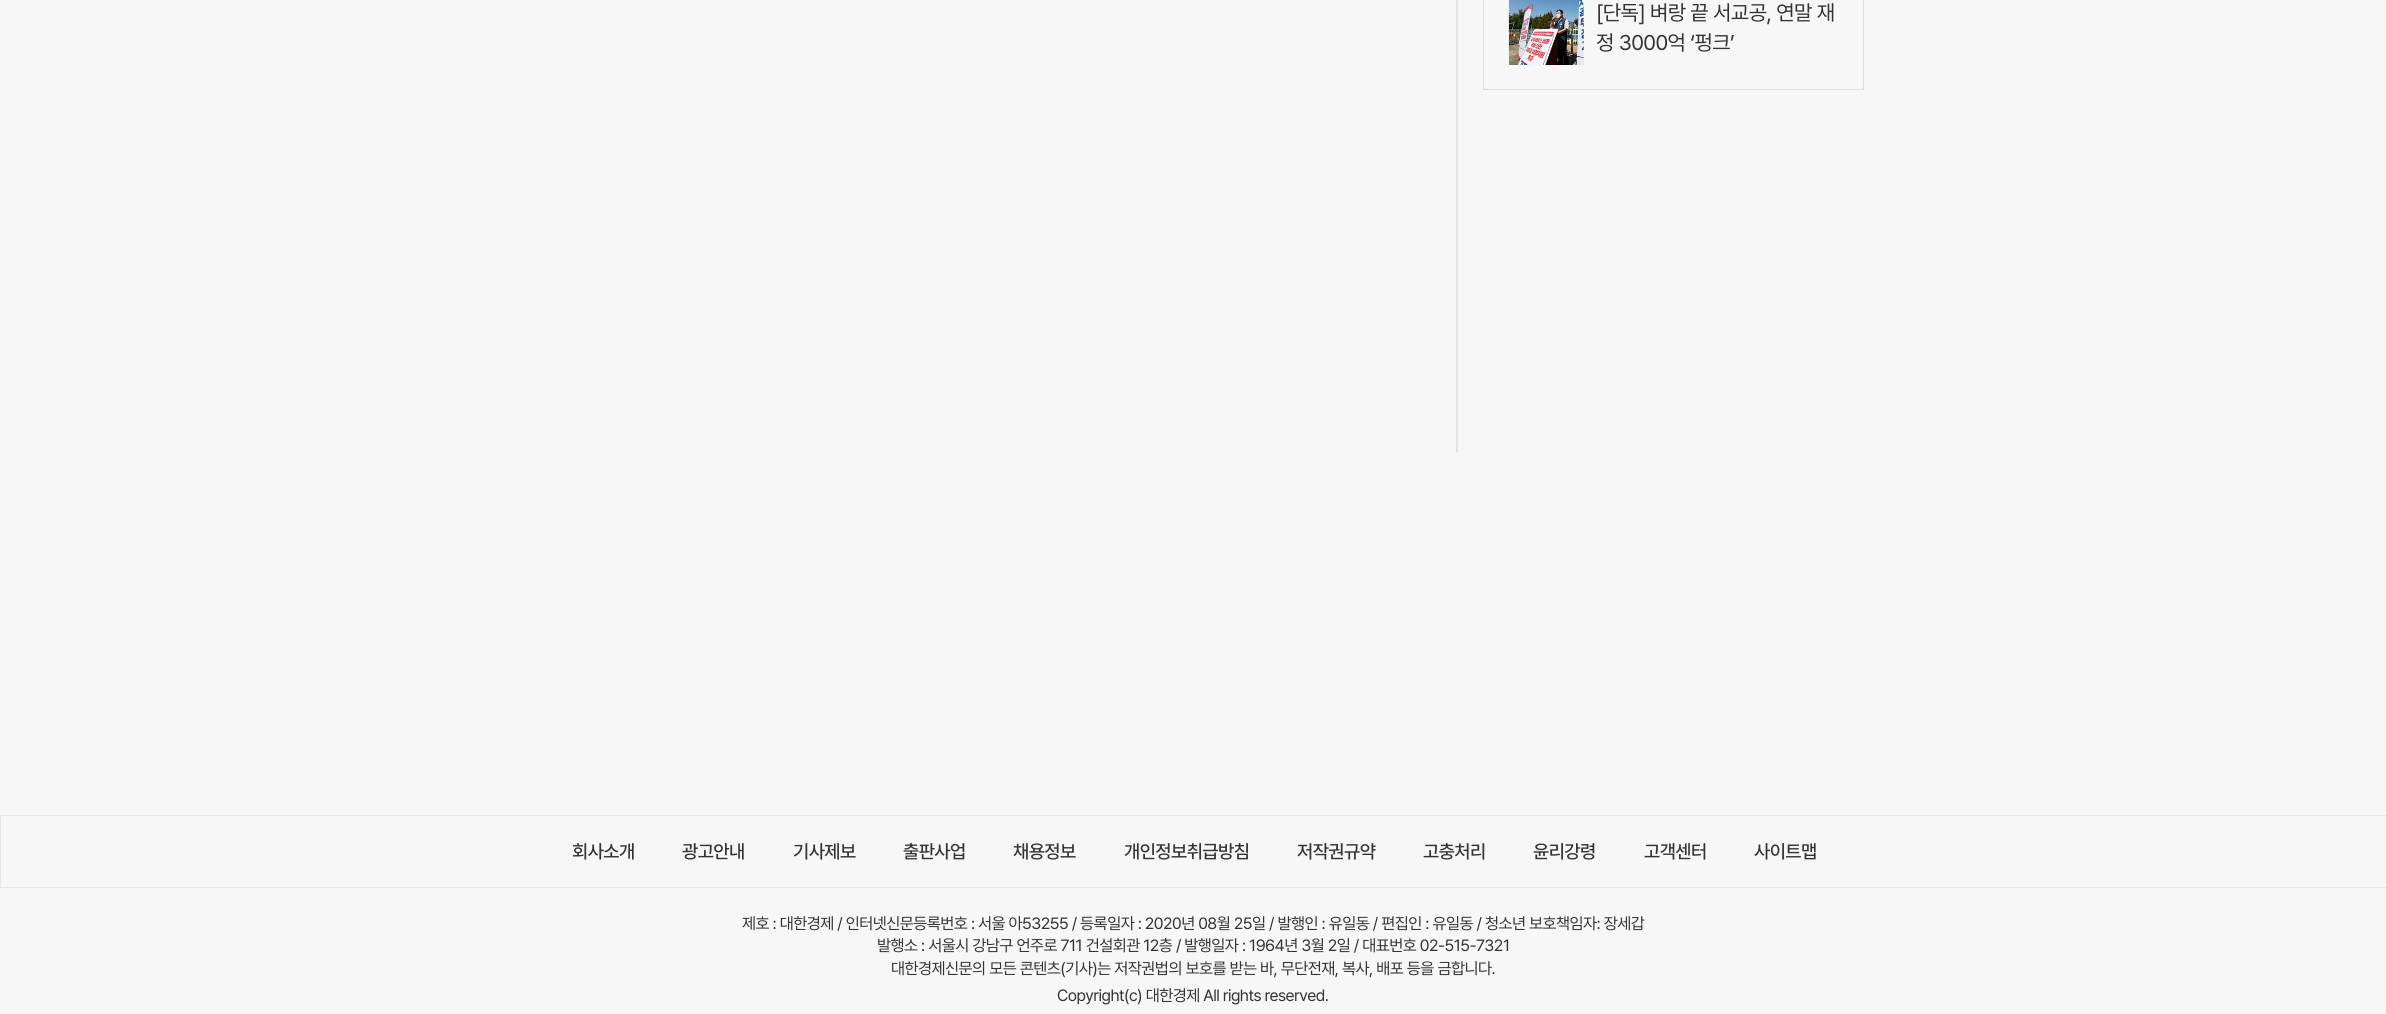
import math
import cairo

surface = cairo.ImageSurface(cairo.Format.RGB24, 2386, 1014)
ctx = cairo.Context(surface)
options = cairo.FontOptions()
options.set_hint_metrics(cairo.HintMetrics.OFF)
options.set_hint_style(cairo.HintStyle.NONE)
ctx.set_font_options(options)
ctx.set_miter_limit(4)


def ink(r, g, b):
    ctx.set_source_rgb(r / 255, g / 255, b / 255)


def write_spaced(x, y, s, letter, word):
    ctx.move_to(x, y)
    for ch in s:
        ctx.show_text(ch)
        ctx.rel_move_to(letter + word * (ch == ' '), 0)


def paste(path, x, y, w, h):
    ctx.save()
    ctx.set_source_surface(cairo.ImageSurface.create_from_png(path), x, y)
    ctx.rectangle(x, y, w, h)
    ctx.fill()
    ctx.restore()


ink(247, 247, 247)
ctx.paint()
paste("pic1.png", 1456, 0, 2, 453)
ctx.rectangle(1483.5, -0.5, 380, 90)
ink(217, 221, 225)
ctx.set_line_width(1)
ctx.stroke()
paste("pic2.png", 1508, 0, 76, 65)
ctx.select_font_face("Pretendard")
ctx.set_font_size(21.25)
ink(51, 51, 51)
write_spaced(1596, 20, "[단독] 벼랑 끝 서교공, 연말 재", -0.53, 0)
write_spaced(1596, 50, "정 3000억 ‘펑크’", -0.53, 0)
ctx.rectangle(0.5, 815.5, 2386, 72)
ink(230, 230, 230)
ctx.stroke()
ctx.select_font_face("Pretendard Medium")
ctx.set_font_size(18.75)
ink(51, 51, 51)
write_spaced(572, 858, "회사소개", -0.53, 0)
write_spaced(682, 858, "광고안내", -0.53, 0)
write_spaced(793, 858, "기사제보", -0.53, 0)
write_spaced(903, 858, "출판사업", -0.53, 0)
write_spaced(1013, 858, "채용정보", -0.53, 0)
write_spaced(1124, 858, "개인정보취급방침", -0.53, 0)
write_spaced(1297, 858, "저작권규약", -0.53, 0)
write_spaced(1423, 858, "고충처리", -0.53, 0)
write_spaced(1533, 858, "윤리강령", -0.53, 0)
write_spaced(1644, 858, "고객센터", -0.53, 0)
write_spaced(1754, 858, "사이트맵", -0.53, 0)
ctx.select_font_face("Pretendard")
ctx.set_font_size(16.25)
write_spaced(742, 929, "제호 : 대한경제 / 인터넷신문등록번호 : 서울 아53255 / 등록일자 : 2020년 08월 25일 / 발행인 : 유일동 / 편집인 : 유일동 / 청소년 보호책임자: 장세갑", -0.53, 0)
write_spaced(877, 951, "발행소 : 서울시 강남구 언주로 711 건설회관 12층 / 발행일자 : 1964년 3월 2일 / 대표번호 02-515-7321", -0.53, 0)
write_spaced(891, 974, "대한경제신문의 모든 콘텐츠(기사)는 저작권법의 보호를 받는 바, 무단전재, 복사, 배포 등을 금합니다.", -0.53, 0)
write_spaced(1057, 1001, "Copyright(c) 대한경제 All rights reserved.", -0.53, 0)
surface.write_to_png("screenshot.png")
